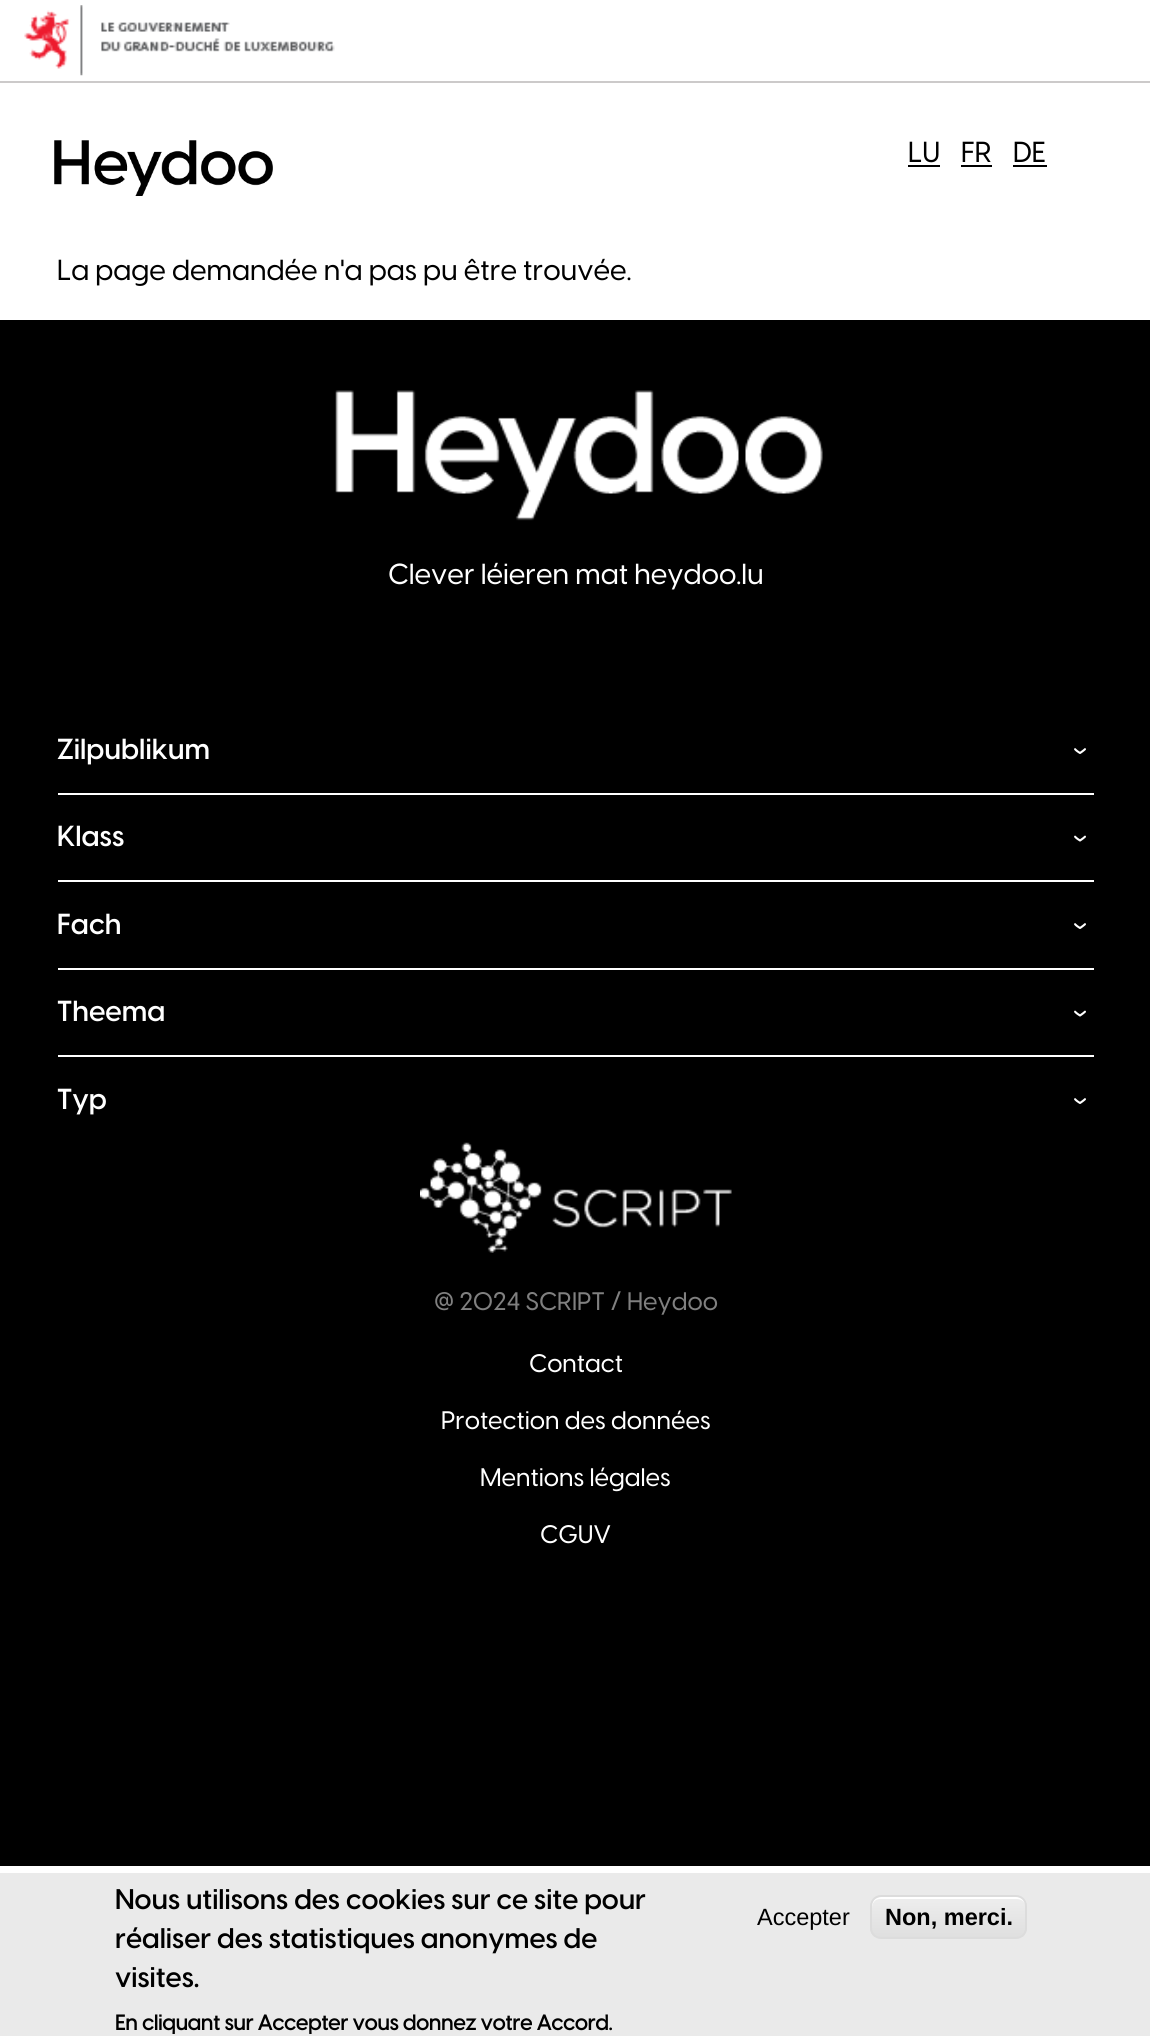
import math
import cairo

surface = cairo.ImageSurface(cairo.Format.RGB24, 1150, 2036)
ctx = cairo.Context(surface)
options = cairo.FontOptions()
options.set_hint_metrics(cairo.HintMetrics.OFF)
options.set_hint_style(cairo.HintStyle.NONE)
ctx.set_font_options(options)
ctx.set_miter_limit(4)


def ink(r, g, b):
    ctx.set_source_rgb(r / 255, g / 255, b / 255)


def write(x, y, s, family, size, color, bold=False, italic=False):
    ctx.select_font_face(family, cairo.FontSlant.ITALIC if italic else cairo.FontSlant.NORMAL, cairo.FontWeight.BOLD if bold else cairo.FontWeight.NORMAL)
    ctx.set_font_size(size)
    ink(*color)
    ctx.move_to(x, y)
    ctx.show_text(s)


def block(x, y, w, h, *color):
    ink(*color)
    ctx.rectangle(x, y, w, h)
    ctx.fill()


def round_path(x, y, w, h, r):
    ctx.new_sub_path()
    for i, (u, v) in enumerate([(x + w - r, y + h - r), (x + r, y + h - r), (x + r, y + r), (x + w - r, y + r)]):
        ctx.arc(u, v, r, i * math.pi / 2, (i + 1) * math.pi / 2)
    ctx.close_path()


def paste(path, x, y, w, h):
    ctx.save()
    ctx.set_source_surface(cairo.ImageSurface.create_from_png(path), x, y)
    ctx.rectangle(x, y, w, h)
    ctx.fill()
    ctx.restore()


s1 = dict(family="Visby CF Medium", size=28.6, color=(0, 0, 0))
s2 = dict(family="Visby CF Medium", size=28.6, color=(255, 255, 255))
s3 = dict(family="Visby CF SemiBold", size=28.6, color=(255, 255, 255))
s4 = dict(family="Visby CF Medium", size=25, color=(128, 128, 128))
s5 = dict(family="Visby CF Medium", size=25, color=(255, 255, 255))
s6 = dict(family="Visby CF SemiBold", size=28, color=(0, 0, 0))
s7 = dict(family="Visby CF", size=21, color=(0, 0, 0), bold=True)
s8 = dict(family="Liberation Sans", size=23.5, color=(0, 0, 0))
s9 = dict(family="Liberation Sans", size=23.5, color=(0, 0, 0), bold=True)

ink(255, 255, 255)
ctx.paint()
block(0, 81, 1150, 2, 204, 202, 202)
paste("pic1.png", 24, 5, 311, 71)
paste("pic2.png", 54, 140, 219, 56)
write(908, 162, "LU", **s1)
block(908, 165, 32, 2, 0, 0, 0)
write(961, 162, "FR", **s1)
block(961, 165, 31, 2, 0, 0, 0)
write(1013, 162, "DE", **s1)
block(1013, 165, 34, 2, 0, 0, 0)
write(57, 280, "La page demandée n'a pas pu être trouvée.", **s1)
block(0, 320, 1150, 1546, 0, 0, 0)
paste("pic3.png", 335, 390, 488, 131)
write(388, 584, "Clever léieren mat heydoo.lu", **s2)
block(58, 793, 1036, 2, 255, 255, 255)
write(57, 759, "Zilpublikum", **s3)
paste("pic4.png", 1074, 748, 12, 6)
block(58, 880, 1036, 2, 255, 255, 255)
write(57, 846, "Klass", **s3)
paste("pic5.png", 1074, 835, 12, 7)
block(58, 968, 1036, 2, 255, 255, 255)
write(57, 934, "Fach", **s3)
paste("pic4.png", 1074, 923, 12, 6)
block(58, 1055, 1036, 2, 255, 255, 255)
write(57, 1021, "Theema", **s3)
paste("pic5.png", 1074, 1010, 12, 7)
write(57, 1109, "Typ", **s3)
paste("pic4.png", 1074, 1098, 12, 6)
paste("pic6.png", 420, 1142, 312, 111)
write(434, 1310, "@ 2024 SCRIPT / Heydoo", **s4)
write(529, 1372, "Contact", **s5)
write(441, 1429, "Protection des données", **s5)
write(480, 1486, "Mentions légales", **s5)
write(540, 1543, "CGUV", **s5)
block(0, 1873, 1150, 163, 234, 234, 234)
write(115, 1909, "Nous utilisons des cookies sur ce site pour", **s6)
write(115, 1948, "réaliser des statistiques anonymes de", **s6)
write(115, 1987, "visites.", **s6)
write(115, 2030, "En cliquant sur Accepter vous donnez votre Accord.", **s7)
write(757, 1925, "Accepter", **s8)
ctx.save()
round_path(870, 1895, 157, 44, 11)
ctx.clip()
gradient = cairo.LinearGradient(949, 1897, 949, 1937)
gradient.add_color_stop_rgba(0.05, 0.929, 0.929, 0.929, 1)
gradient.add_color_stop_rgba(1, 0.875, 0.875, 0.875, 1)
ctx.set_source(gradient)
ctx.rectangle(870, 1897, 157, 40)
ctx.fill()
ctx.restore()
ink(255, 255, 255)
ctx.new_path()
ctx.move_to(880, 1899)
ctx.line_to(1017, 1899)
ctx.curve_to(1022, 1899, 1026, 1903, 1026, 1908)
ctx.line_to(1026, 1906)
ctx.curve_to(1026, 1901, 1022, 1897, 1017, 1897)
ctx.line_to(881, 1897)
ctx.curve_to(876, 1897, 872, 1901, 872, 1906)
ctx.line_to(872, 1908)
ctx.curve_to(872, 1903, 875, 1899, 880, 1899)
ctx.close_path()
ctx.fill()
round_path(871, 1896, 155, 42, 10)
ink(220, 220, 220)
ctx.stroke()
write(885, 1925, "Non, merci.", **s9)
surface.write_to_png("screenshot.png")
